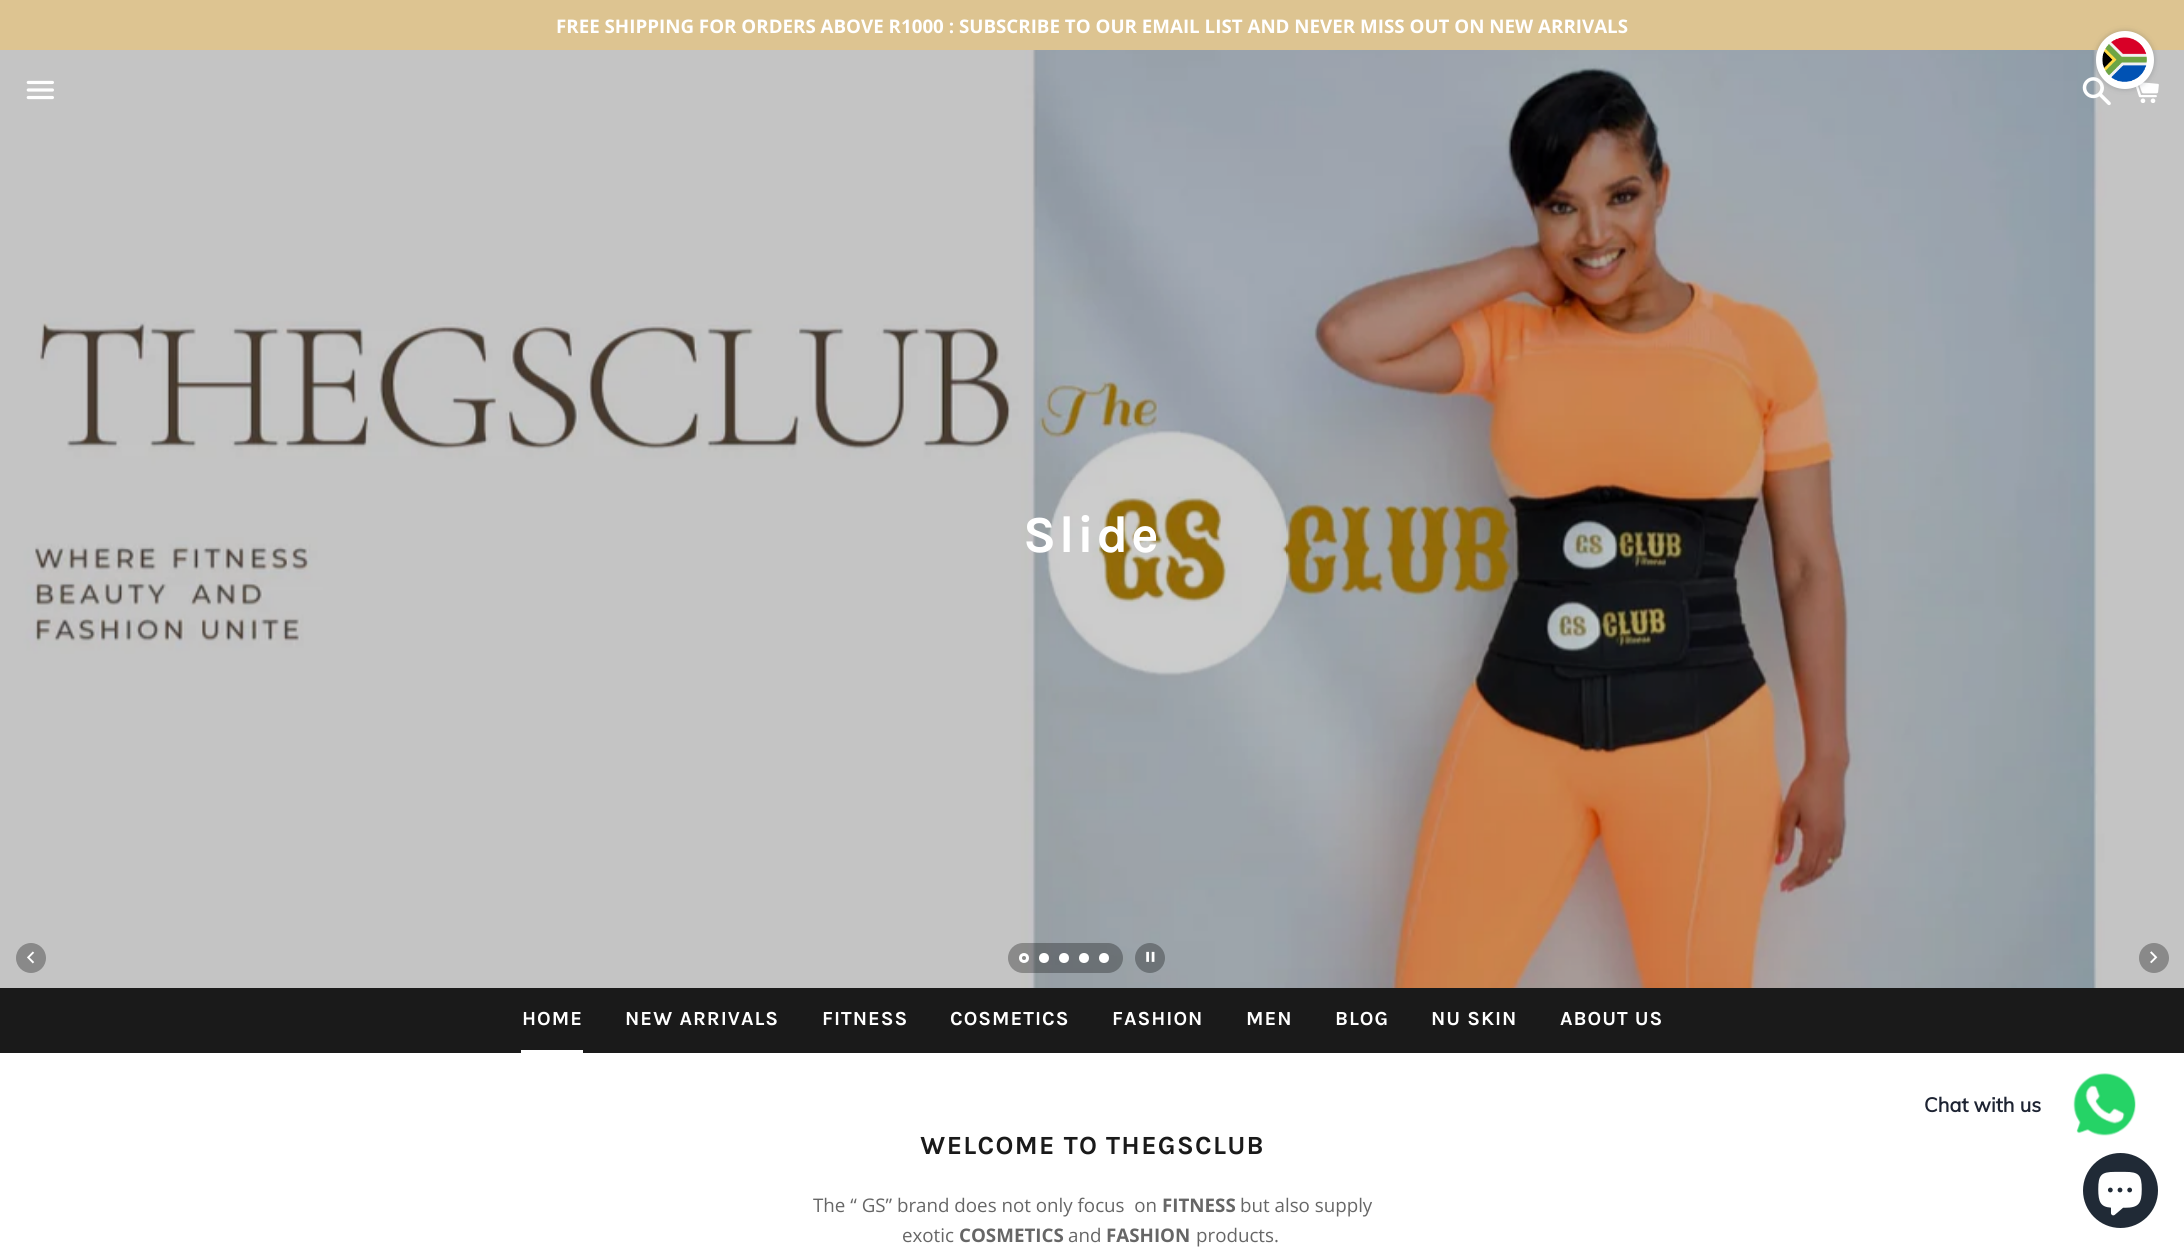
import math
import cairo

surface = cairo.ImageSurface(cairo.Format.RGB24, 2184, 1253)
ctx = cairo.Context(surface)
options = cairo.FontOptions()
options.set_hint_metrics(cairo.HintMetrics.OFF)
options.set_hint_style(cairo.HintStyle.NONE)
ctx.set_font_options(options)
ctx.set_miter_limit(4)


def ink(r, g, b):
    ctx.set_source_rgb(r / 255, g / 255, b / 255)


def write(x, y, s, family, size, color, bold=False, italic=False):
    ctx.select_font_face(family, cairo.FontSlant.ITALIC if italic else cairo.FontSlant.NORMAL, cairo.FontWeight.BOLD if bold else cairo.FontWeight.NORMAL)
    ctx.set_font_size(size)
    ink(*color)
    ctx.move_to(x, y)
    ctx.show_text(s)


def write_spaced(x, y, s, letter, word):
    ctx.move_to(x, y)
    for ch in s:
        ctx.show_text(ch)
        ctx.rel_move_to(letter + word * (ch == ' '), 0)


def block(x, y, w, h, *color):
    ink(*color)
    ctx.rectangle(x, y, w, h)
    ctx.fill()


def round_path(x, y, w, h, r):
    ctx.new_sub_path()
    for i, (u, v) in enumerate([(x + w - r, y + h - r), (x + r, y + h - r), (x + r, y + r), (x + w - r, y + r)]):
        ctx.arc(u, v, r, i * math.pi / 2, (i + 1) * math.pi / 2)
    ctx.close_path()


def blur_box(x, y, w, h, r, blur, alpha):
    ctx.push_group_with_content(cairo.Content.ALPHA)
    ctx.set_operator(cairo.Operator.SOURCE)
    for i in range(15, -16, -2):
        e = blur * i / 6
        if min(w, h) + 2 * e > 0:
            ctx.set_source_rgba(0, 0, 0, alpha * math.erfc((i - 1) / 8.5) / 2)
            round_path(x - e, y - e, w + 2 * e, h + 2 * e, max(0, min(r + e + blur * .6, min(w, h) / 2 + e)))
            ctx.fill()
    ctx.mask(ctx.pop_group())


def paste(path, x, y, w, h):
    ctx.save()
    ctx.set_source_surface(cairo.ImageSurface.create_from_png(path), x, y)
    ctx.rectangle(x, y, w, h)
    ctx.fill()
    ctx.restore()


s1 = dict(family="Open Sans", size=18.75, color=(255, 255, 255), bold=True)
s2 = dict(family="Muli", size=20, color=(30, 36, 51), bold=True)
s3 = dict(family="Open Sans", size=18.75, color=(102, 102, 102))
s4 = dict(family="Open Sans", size=18.75, color=(102, 102, 102), bold=True)

ink(255, 255, 255)
ctx.paint()
block(0, 0, 2184, 50, 221, 196, 145)
write(556, 33, "FREE SHIPPING FOR ORDERS ABOVE R1000 : SUBSCRIBE TO OUR EMAIL LIST AND NEVER MISS OUT ON NEW ARRIVALS", **s1)
paste("pic4.png", 0, 50, 2184, 938)
paste("pic1.png", 26, 80, 28, 20)
paste("pic2.png", 2082, 77, 29, 29)
paste("pic3.png", 2135, 82, 24, 21)
ctx.select_font_face("Karla", cairo.FontSlant.NORMAL, cairo.FontWeight.BOLD)
ctx.set_font_size(52)
write_spaced(1023, 552, "Slide", 2.5, 0)
ink(137, 137, 137)
ctx.new_path()
ctx.arc(31, 958, 15, 0, 2 * math.pi)
ctx.fill()
paste("pic5.png", 27, 951, 8, 13)
ctx.arc(2154, 958, 15, 0, 2 * math.pi)
ctx.fill()
paste("pic6.png", 2150, 951, 8, 13)
ctx.set_source_rgba(0, 0, 0, 0.3)
round_path(1008, 943, 115, 30, 15)
ctx.fill()
ctx.arc(1024, 958, 3.5, 0, 2 * math.pi)
ink(255, 255, 255)
ctx.set_line_width(3)
ctx.stroke()
ctx.arc(1044, 958, 5, 0, 2 * math.pi)
ctx.fill()
ctx.arc(1064, 958, 5, 0, 2 * math.pi)
ctx.fill()
ctx.arc(1084, 958, 5, 0, 2 * math.pi)
ctx.fill()
ctx.arc(1104, 958, 5, 0, 2 * math.pi)
ctx.fill()
ink(109, 115, 119)
ctx.arc(1150, 958, 15, 0, 2 * math.pi)
ctx.fill()
paste("pic7.png", 1146, 951, 9, 11)
block(0, 988, 2184, 65, 26, 26, 26)
ctx.set_font_size(20)
ink(255, 255, 255)
write_spaced(522, 1025, "HOME", 1, 0)
block(521, 1050, 62, 3, 255, 255, 255)
write_spaced(625, 1025, "NEW ARRIVALS", 1, 0)
write_spaced(822, 1025, "FITNESS", 1, 0)
write_spaced(950, 1025, "COSMETICS", 1, 0)
write_spaced(1112, 1025, "FASHION", 1, 0)
write_spaced(1246, 1025, "MEN", 1, 0)
write_spaced(1335, 1025, "BLOG", 1, 0)
write_spaced(1431, 1025, "NU SKIN", 1, 0)
write_spaced(1560, 1025, "ABOUT US", 1, 0)
ink(33, 43, 54)
blur_box(2096, 31, 58, 58, 29, 3, 0.25)
ink(255, 255, 255)
ctx.arc(2125, 60, 29, 0, 2 * math.pi)
ctx.fill()
paste("pic8.png", 2102, 37, 45, 45)
paste("pic9.png", 2073, 1073, 63, 63)
write(1924, 1112, "Chat with us", **s2)
ctx.select_font_face("Karla", cairo.FontSlant.NORMAL, cairo.FontWeight.BOLD)
ctx.set_font_size(26.25)
ink(26, 26, 26)
write_spaced(920, 1154, "WELCOME TO THEGSCLUB", 1.3, 0)
write(813, 1212, "The “ GS” brand does not only focus  on", **s3)
write(1162, 1212, "FITNESS", **s4)
write(1240, 1212, "but also supply", **s3)
write(902, 1242, "exotic", **s3)
write(959, 1242, "COSMETICS", **s4)
write(1068, 1242, "and", **s3)
write(1106, 1242, "FASHION", **s4)
write(1196, 1242, "products.", **s3)
ink(32, 42, 54)
ctx.new_path()
ctx.arc(2120.5, 1190.5, 37.5, 0, 2 * math.pi)
ctx.fill()
paste("pic10.png", 2098, 1171, 44, 45)
surface.write_to_png("screenshot.png")
